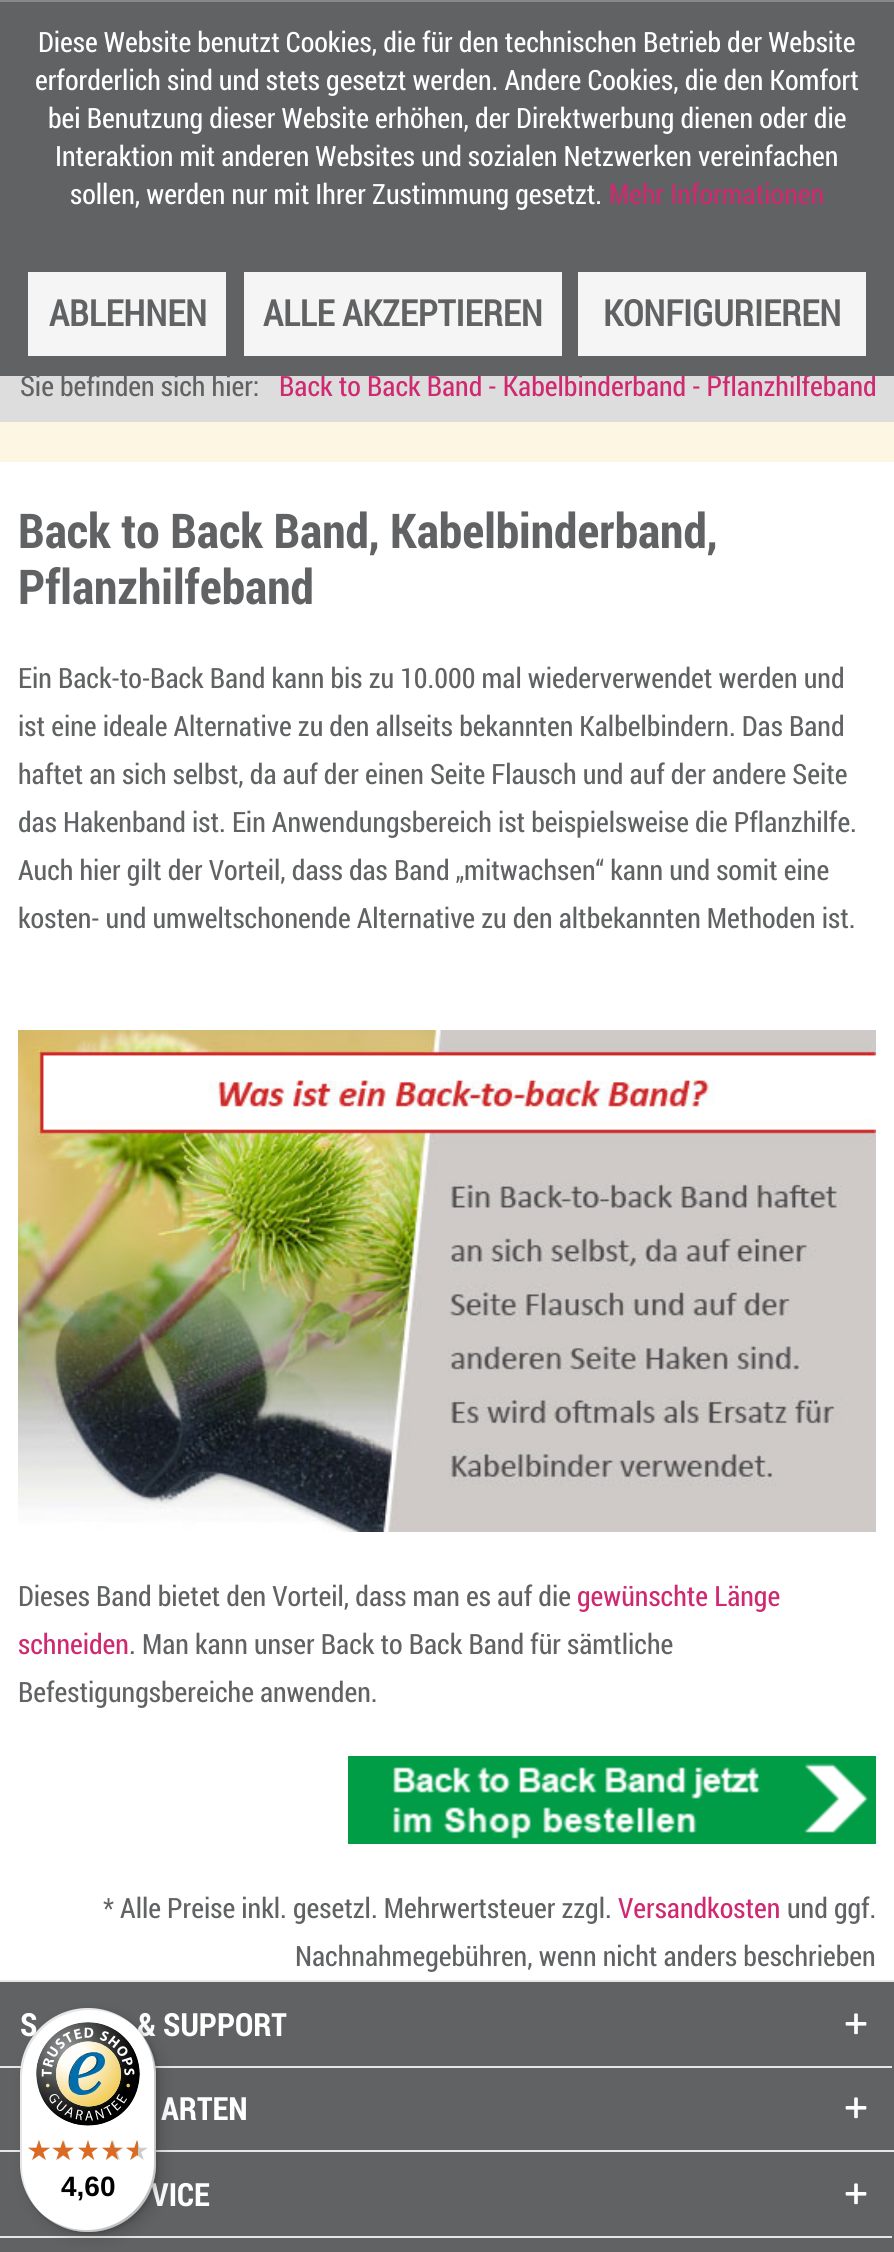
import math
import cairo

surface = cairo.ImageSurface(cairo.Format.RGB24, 894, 2252)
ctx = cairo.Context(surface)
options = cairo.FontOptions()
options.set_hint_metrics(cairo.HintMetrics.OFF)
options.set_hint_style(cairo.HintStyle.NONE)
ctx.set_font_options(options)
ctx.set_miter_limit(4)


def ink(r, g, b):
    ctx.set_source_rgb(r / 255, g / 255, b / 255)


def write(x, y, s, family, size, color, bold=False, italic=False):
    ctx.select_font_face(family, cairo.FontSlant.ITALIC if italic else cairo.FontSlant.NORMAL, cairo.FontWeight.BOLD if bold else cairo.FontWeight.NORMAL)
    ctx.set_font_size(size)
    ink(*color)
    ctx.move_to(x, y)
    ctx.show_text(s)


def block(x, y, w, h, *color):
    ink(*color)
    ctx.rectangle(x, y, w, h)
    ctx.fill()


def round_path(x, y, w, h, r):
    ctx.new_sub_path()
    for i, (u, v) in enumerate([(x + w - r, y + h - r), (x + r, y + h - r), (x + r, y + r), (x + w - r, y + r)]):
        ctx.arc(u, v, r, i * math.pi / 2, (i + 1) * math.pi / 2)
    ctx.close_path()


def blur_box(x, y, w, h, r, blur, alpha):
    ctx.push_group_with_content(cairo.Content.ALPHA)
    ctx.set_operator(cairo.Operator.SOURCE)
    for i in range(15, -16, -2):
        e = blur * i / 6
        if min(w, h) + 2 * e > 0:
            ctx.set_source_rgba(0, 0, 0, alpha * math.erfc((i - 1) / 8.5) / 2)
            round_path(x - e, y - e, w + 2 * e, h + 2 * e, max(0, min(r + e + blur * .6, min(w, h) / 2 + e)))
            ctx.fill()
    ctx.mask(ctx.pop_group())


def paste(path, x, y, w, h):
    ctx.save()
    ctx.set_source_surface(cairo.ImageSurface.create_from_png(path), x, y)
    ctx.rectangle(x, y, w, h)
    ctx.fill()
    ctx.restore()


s1 = dict(family="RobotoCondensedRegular", size=28, color=(207, 41, 113))
s2 = dict(family="RobotoCondensedRegular", size=28, color=(255, 255, 255))
s3 = dict(family="RobotoCondensedRegular", size=36, color=(97, 98, 99), bold=True)
s4 = dict(family="RobotoCondensedRegular", size=28, color=(97, 98, 99))
s5 = dict(family="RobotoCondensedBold", size=48, color=(97, 98, 99), bold=True)
s6 = dict(family="RobotoCondensedBold", size=32, color=(255, 255, 255), bold=True)
s7 = dict(family="Liberation Sans", size=28, color=(0, 0, 0), bold=True)

ink(252, 246, 226)
ctx.paint()
block(0, 376, 894, 46, 221, 221, 221)
write(279, 396, "Back to Back Band - Kabelbinderband - Pflanzhilfeband", **s1)
block(0, 2, 894, 374, 97, 98, 99)
block(0, 0, 894, 2, 135, 136, 138)
write(38, 52, "Diese Website benutzt Cookies, die für den technischen Betrieb der Website", **s2)
write(35, 90, "erforderlich sind und stets gesetzt werden. Andere Cookies, die den Komfort", **s2)
write(48, 128, "bei Benutzung dieser Website erhöhen, der Direktwerbung dienen oder die", **s2)
write(55, 166, "Interaktion mit anderen Websites und sozialen Netzwerken vereinfachen", **s2)
write(70, 204, "sollen, werden nur mit Ihrer Zustimmung gesetzt.", **s2)
write(609, 204, "Mehr Informationen", **s1)
block(28, 272, 198, 84, 245, 245, 245)
write(49, 326, "ABLEHNEN", **s3)
block(244, 272, 318, 84, 245, 245, 245)
write(263, 326, "ALLE AKZEPTIEREN", **s3)
block(578, 272, 288, 84, 245, 245, 245)
write(603, 326, "KONFIGURIEREN", **s3)
write(20, 396, "Sie befinden sich hier:", **s4)
block(0, 462, 894, 1518, 255, 255, 255)
write(18, 548, "Back to Back Band, Kabelbinderband,", **s5)
write(18, 604, "Pflanzhilfeband", **s5)
write(18, 688, "Ein Back-to-Back Band kann bis zu 10.000 mal wiederverwendet werden und", **s4)
write(18, 736, "ist eine ideale Alternative zu den allseits bekannten Kalbelbindern. Das Band", **s4)
write(18, 784, "haftet an sich selbst, da auf der einen Seite Flausch und auf der andere Seite", **s4)
write(18, 832, "das Hakenband ist. Ein Anwendungsbereich ist beispielsweise die Pflanzhilfe.", **s4)
write(18, 880, "Auch hier gilt der Vorteil, dass das Band „mitwachsen“ kann und somit eine", **s4)
write(18, 928, "kosten- und umweltschonende Alternative zu den altbekannten Methoden ist.", **s4)
paste("pic1.png", 18, 1030, 858, 502)
write(18, 1606, "Dieses Band bietet den Vorteil, dass man es auf die", **s4)
write(577, 1606, "gewünschte Länge", **s1)
write(18, 1654, "schneiden", **s1)
write(129, 1654, ". Man kann unser Back to Back Band für sämtliche", **s4)
write(18, 1702, "Befestigungsbereiche anwenden.", **s4)
paste("pic2.png", 348, 1756, 528, 88)
write(103, 1918, "* Alle Preise inkl. gesetzl. Mehrwertsteuer zzgl.", **s4)
write(618, 1918, "Versandkosten", **s1)
write(787, 1918, "und ggf.", **s4)
write(295, 1966, "Nachnahmegebühren, wenn nicht anders beschrieben", **s4)
block(0, 1982, 894, 270, 97, 98, 99)
block(0, 1980, 894, 2, 231, 231, 231)
write(20, 2036, "S", **s6)
write(137, 2036, "& SUPPORT", **s6)
paste("pic3.png", 845, 2013, 22, 22)
block(0, 2066, 892, 2, 231, 231, 231)
write(161, 2120, "ARTEN", **s6)
paste("pic3.png", 845, 2097, 22, 22)
block(0, 2150, 894, 2, 231, 231, 231)
write(151, 2206, "VICE", **s6)
paste("pic3.png", 845, 2183, 22, 22)
block(0, 2236, 892, 2, 231, 231, 231)
ink(0, 0, 0)
blur_box(26, 2014, 136, 224, 68, 8, 0.15)
blur_box(22, 2010, 136, 224, 68, 2, 0.15)
ink(255, 255, 255)
round_path(20, 2008, 136, 224, 68)
ctx.fill()
ctx.set_source_rgba(0, 0, 0, 0.1)
ctx.new_path()
ctx.move_to(90, 2010)
ctx.curve_to(106, 2010, 121, 2016, 133, 2025)
ctx.curve_to(121, 2014, 105, 2008, 88, 2008)
ctx.curve_to(50, 2008, 20, 2038, 20, 2076)
ctx.line_to(20, 2164)
ctx.curve_to(20, 2181, 26, 2197, 37, 2209)
ctx.curve_to(28, 2197, 22, 2182, 22, 2166)
ctx.line_to(22, 2078)
ctx.curve_to(22, 2040, 52, 2010, 90, 2010)
ctx.close_path()
ctx.fill()
ctx.set_source_rgba(0, 0, 0, 0.2)
ctx.new_path()
ctx.move_to(43, 2215)
ctx.curve_to(55, 2226, 71, 2232, 88, 2232)
ctx.curve_to(126, 2232, 156, 2202, 156, 2164)
ctx.line_to(156, 2076)
ctx.curve_to(156, 2059, 150, 2043, 139, 2031)
ctx.curve_to(148, 2043, 154, 2058, 154, 2074)
ctx.line_to(154, 2162)
ctx.curve_to(154, 2200, 124, 2230, 86, 2230)
ctx.curve_to(70, 2230, 55, 2224, 43, 2215)
ctx.close_path()
ctx.fill()
ctx.set_source_rgba(0.196, 0.196, 0.196, 0.2)
ctx.new_path()
ctx.move_to(38, 2211)
ctx.curve_to(51, 2224, 68, 2232, 88, 2232)
ctx.curve_to(126, 2232, 156, 2202, 156, 2164)
ctx.line_to(156, 2076)
ctx.curve_to(156, 2056, 148, 2039, 135, 2026)
ctx.curve_to(147, 2039, 155, 2056, 155, 2075)
ctx.line_to(155, 2163)
ctx.curve_to(155, 2200, 124, 2231, 87, 2231)
ctx.curve_to(68, 2231, 51, 2223, 38, 2211)
ctx.close_path()
ctx.fill()
ctx.set_source_rgba(1, 1, 1, 0.3)
ctx.new_path()
ctx.move_to(47, 2218)
ctx.curve_to(59, 2227, 73, 2232, 88, 2232)
ctx.curve_to(126, 2232, 156, 2202, 156, 2164)
ctx.line_to(156, 2076)
ctx.curve_to(156, 2061, 151, 2047, 142, 2035)
ctx.curve_to(150, 2046, 155, 2060, 155, 2075)
ctx.line_to(155, 2163)
ctx.curve_to(155, 2201, 125, 2231, 87, 2231)
ctx.curve_to(72, 2231, 58, 2226, 47, 2218)
ctx.close_path()
ctx.fill()
paste("pic4.png", 36, 2022, 104, 104)
paste("pic5.png", 28, 2140, 22, 20)
paste("pic6.png", 54, 2140, 20, 20)
paste("pic7.png", 78, 2140, 20, 20)
paste("pic8.png", 102, 2140, 22, 20)
paste("pic8.png", 126, 2140, 22, 20)
paste("pic9.png", 28, 2140, 22, 20)
paste("pic10.png", 52, 2140, 22, 20)
paste("pic11.png", 78, 2140, 20, 20)
paste("pic12.png", 102, 2140, 20, 20)
paste("pic13.png", 126, 2140, 12, 20)
write(61, 2196, "4,60", **s7)
surface.write_to_png("screenshot.png")
